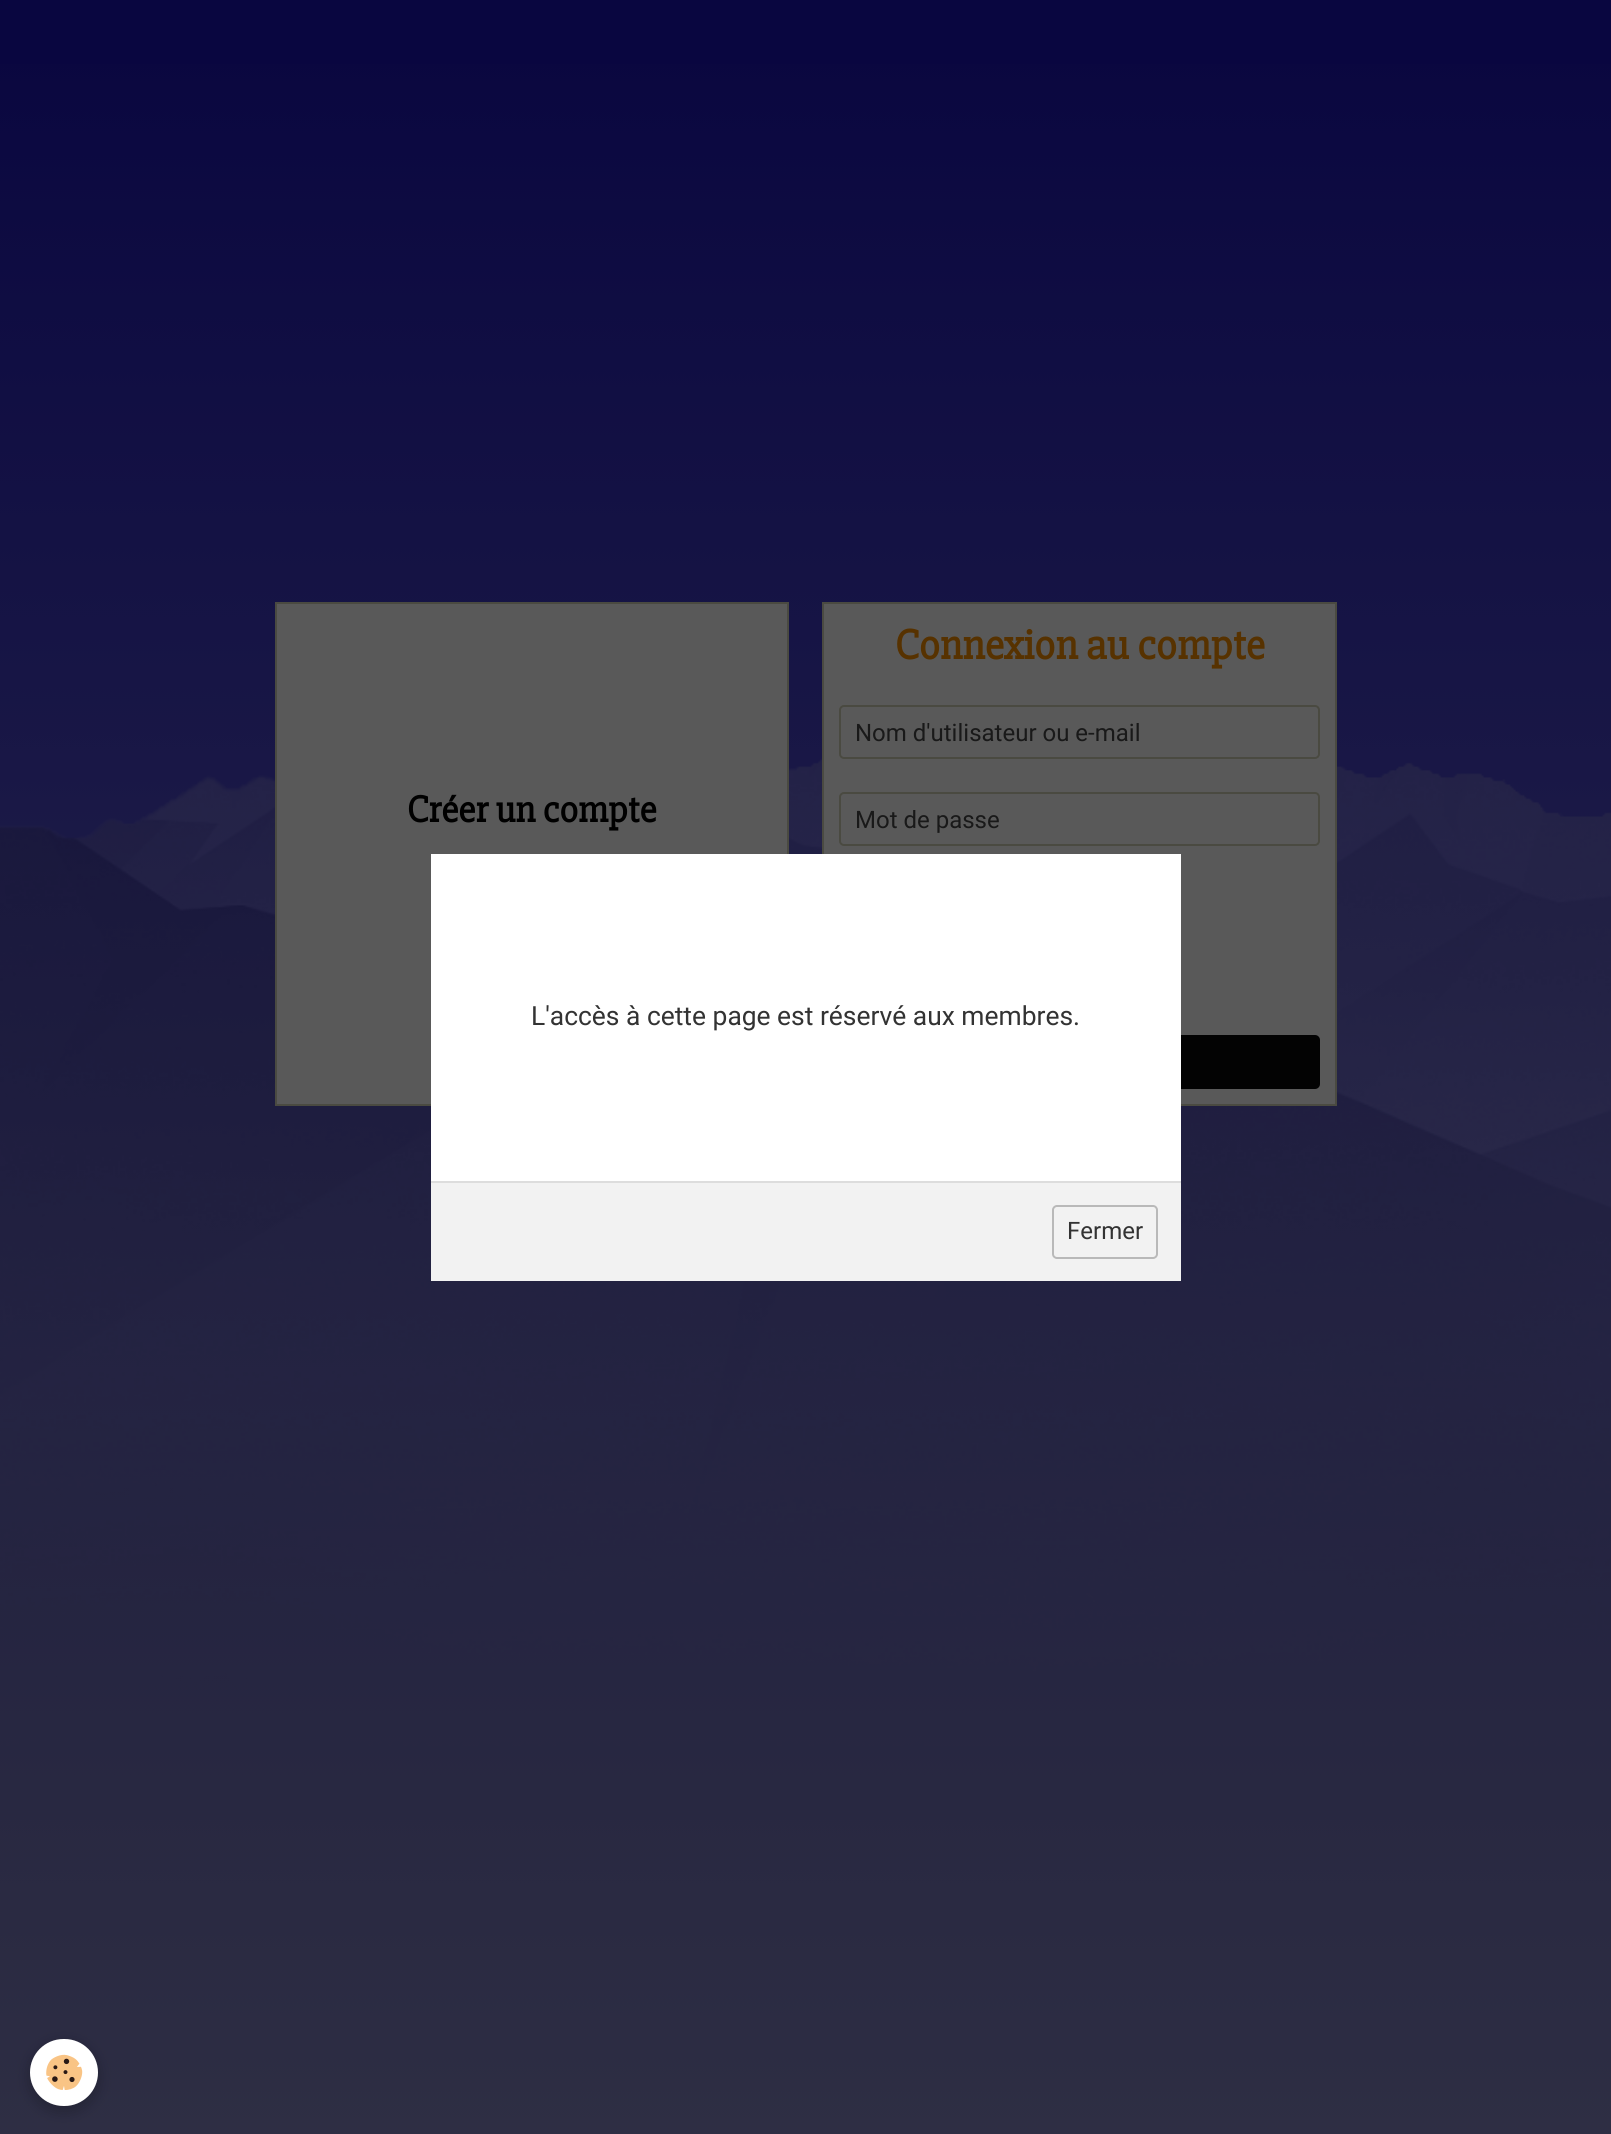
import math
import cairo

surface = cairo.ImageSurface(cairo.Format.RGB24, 1611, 2134)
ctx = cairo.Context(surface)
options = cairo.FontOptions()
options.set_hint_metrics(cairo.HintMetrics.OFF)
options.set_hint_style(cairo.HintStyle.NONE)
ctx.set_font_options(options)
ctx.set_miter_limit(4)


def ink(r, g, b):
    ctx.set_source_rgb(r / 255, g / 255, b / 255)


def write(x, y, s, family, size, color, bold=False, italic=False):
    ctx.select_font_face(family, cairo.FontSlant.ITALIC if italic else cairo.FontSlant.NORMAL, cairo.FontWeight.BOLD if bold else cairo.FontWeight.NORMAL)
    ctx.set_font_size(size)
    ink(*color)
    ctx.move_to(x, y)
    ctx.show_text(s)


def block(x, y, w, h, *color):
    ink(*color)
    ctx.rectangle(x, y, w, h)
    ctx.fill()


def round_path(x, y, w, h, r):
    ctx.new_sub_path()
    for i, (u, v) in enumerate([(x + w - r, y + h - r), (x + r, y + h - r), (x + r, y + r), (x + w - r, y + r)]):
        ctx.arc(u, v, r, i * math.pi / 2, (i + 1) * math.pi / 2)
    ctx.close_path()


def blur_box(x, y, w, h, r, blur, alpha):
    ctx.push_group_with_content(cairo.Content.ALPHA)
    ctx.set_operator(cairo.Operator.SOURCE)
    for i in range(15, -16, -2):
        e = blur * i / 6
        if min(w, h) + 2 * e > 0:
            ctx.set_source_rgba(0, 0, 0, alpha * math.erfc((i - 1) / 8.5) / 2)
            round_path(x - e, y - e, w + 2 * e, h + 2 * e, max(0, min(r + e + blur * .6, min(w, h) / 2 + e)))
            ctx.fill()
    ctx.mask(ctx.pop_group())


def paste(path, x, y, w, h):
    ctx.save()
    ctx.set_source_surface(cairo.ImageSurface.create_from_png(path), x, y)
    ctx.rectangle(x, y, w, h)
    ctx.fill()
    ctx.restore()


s1 = dict(family="Slabo 27px", size=38.5, color=(0, 0, 0), bold=True)
s2 = dict(family="Slabo 27px", size=43.25, color=(87, 50, 0), bold=True)
s3 = dict(family="Roboto", size=24, color=(25, 25, 25))
s4 = dict(family="Roboto", size=26.4, color=(51, 51, 51))
s5 = dict(family="Roboto", size=24, color=(51, 51, 51))

ink(9, 6, 64)
ctx.paint()
paste("pic1.png", 0, 64, 1611, 2070)
ink(89, 89, 89)
ctx.rectangle(276, 603, 512, 502)
ctx.fill_preserve()
ink(74, 74, 65)
ctx.stroke()
write(407, 822, "Créer un compte", **s1)
ink(89, 89, 89)
ctx.rectangle(823, 603, 513, 502)
ctx.fill_preserve()
ink(74, 74, 65)
ctx.stroke()
write(895, 659, "Connexion au compte", **s2)
round_path(840, 706, 479, 52, 4)
ink(74, 74, 65)
ctx.stroke()
write(855, 741, "Nom d'utilisateur ou e-mail", **s3)
round_path(840, 793, 479, 52, 4)
ink(74, 74, 65)
ctx.stroke()
write(855, 828, "Mot de passe", **s3)
ink(3, 3, 3)
round_path(839, 1035, 481, 54, 5)
ctx.fill()
block(431, 854, 750, 327, 255, 255, 255)
write(531, 1025, "L'accès à cette page est réservé aux membres.", **s4)
block(431, 1183, 750, 98, 242, 242, 242)
block(431, 1181, 750, 2, 221, 221, 221)
round_path(1053, 1206, 104, 52, 4)
ink(185, 185, 185)
ctx.stroke()
write(1067, 1239, "Fermer", **s5)
ink(0, 0, 0)
blur_box(30, 2043, 68, 68, 34, 7.5, 0.24)
ink(255, 255, 255)
round_path(30, 2039, 68, 67, 33.5)
ctx.fill()
paste("pic2.png", 46, 2054, 37, 36)
surface.write_to_png("screenshot.png")
